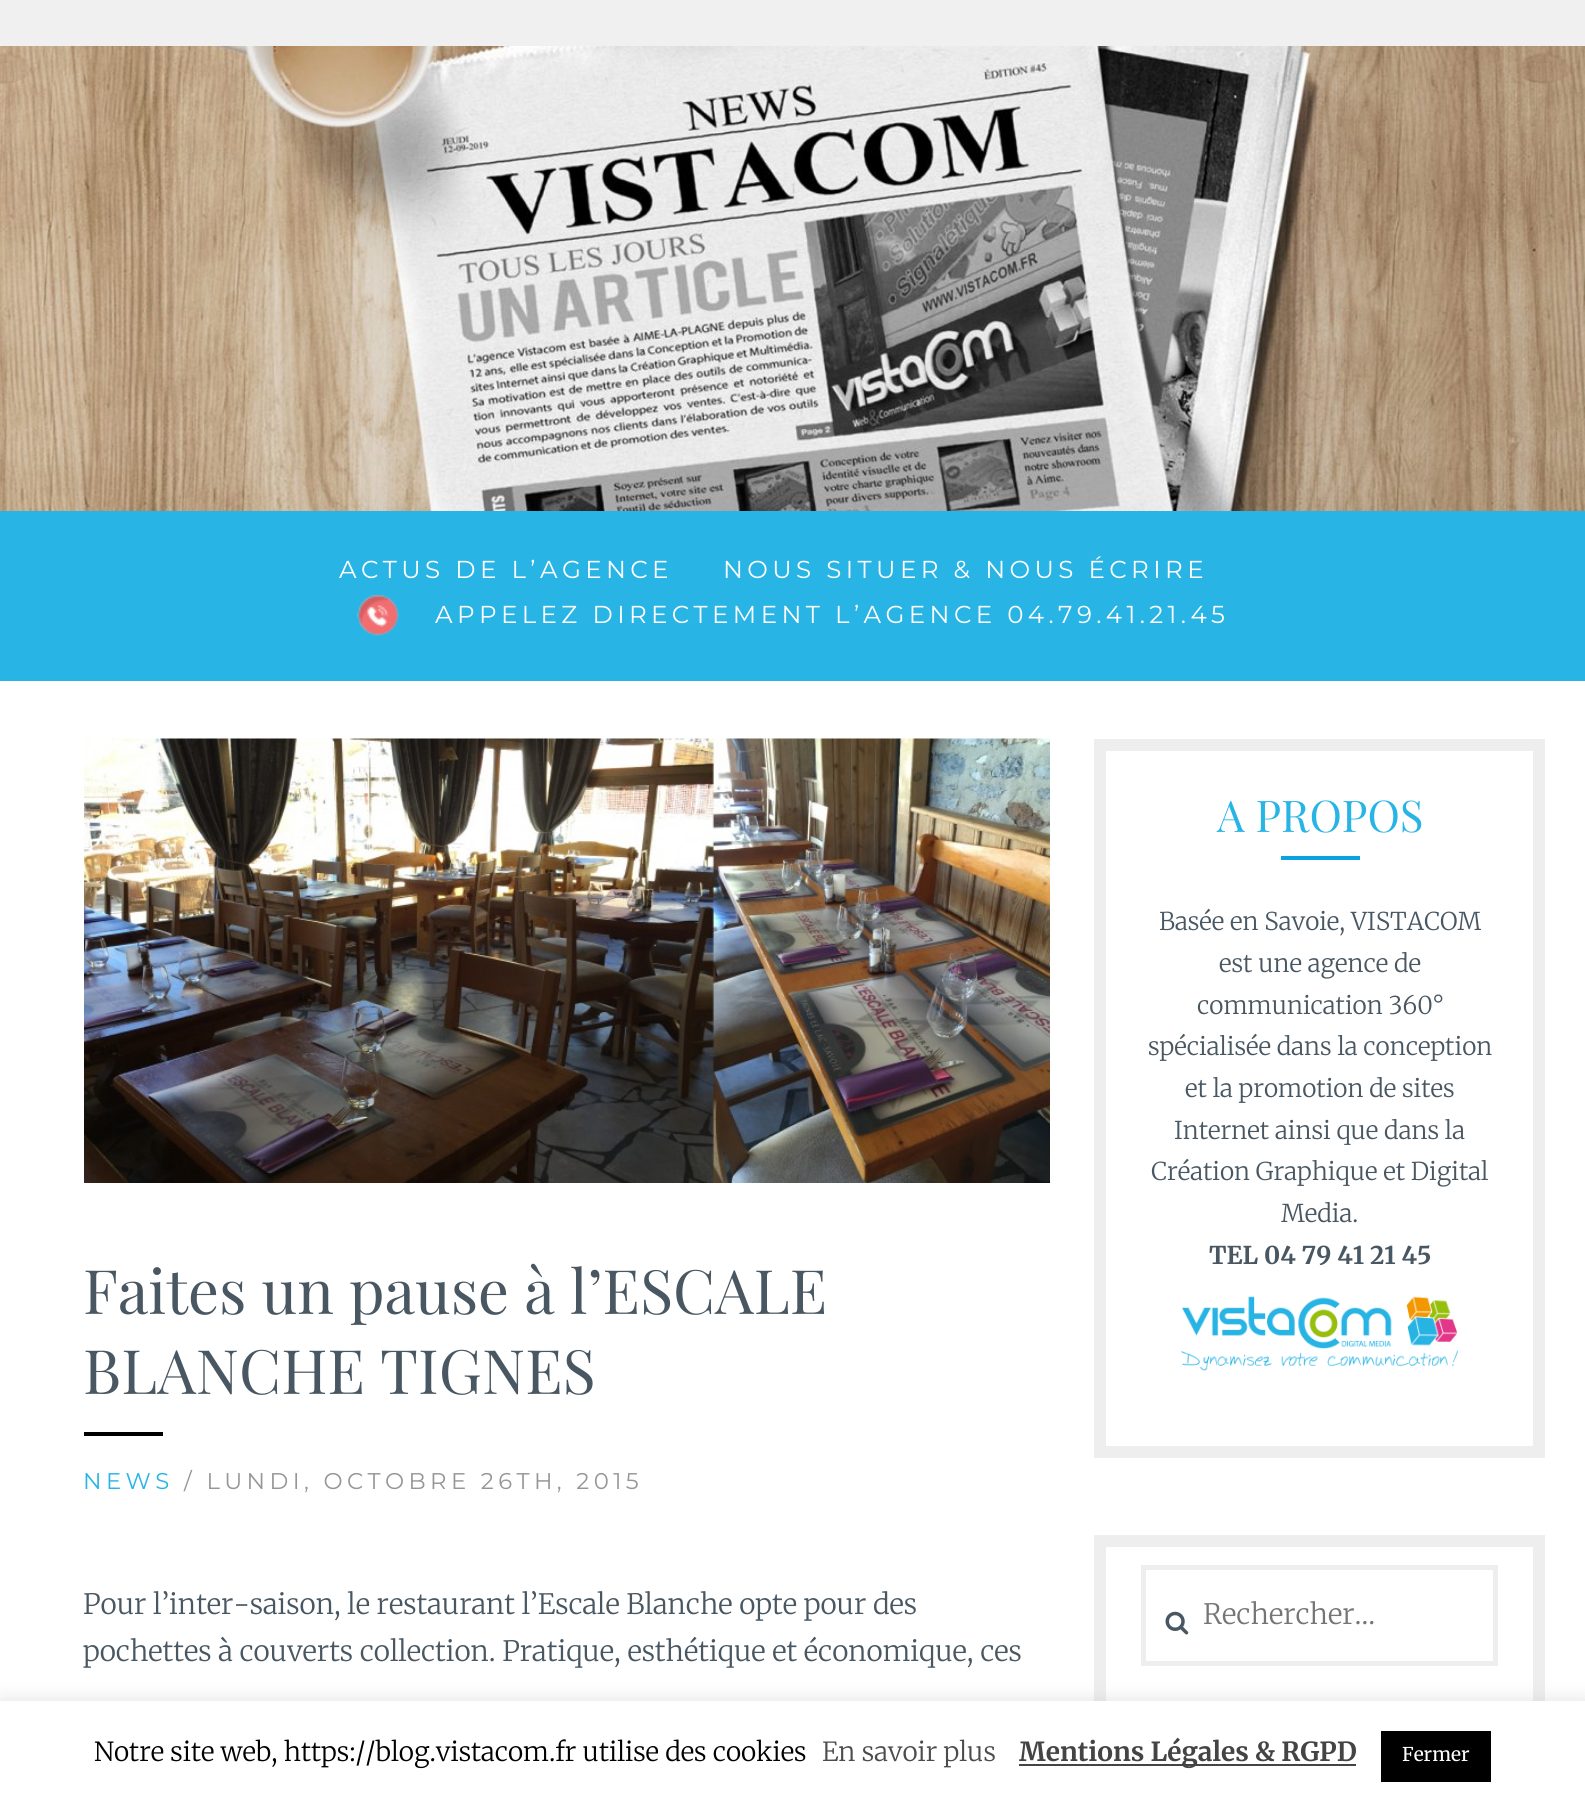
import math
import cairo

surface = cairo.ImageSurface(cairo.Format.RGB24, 1585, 1804)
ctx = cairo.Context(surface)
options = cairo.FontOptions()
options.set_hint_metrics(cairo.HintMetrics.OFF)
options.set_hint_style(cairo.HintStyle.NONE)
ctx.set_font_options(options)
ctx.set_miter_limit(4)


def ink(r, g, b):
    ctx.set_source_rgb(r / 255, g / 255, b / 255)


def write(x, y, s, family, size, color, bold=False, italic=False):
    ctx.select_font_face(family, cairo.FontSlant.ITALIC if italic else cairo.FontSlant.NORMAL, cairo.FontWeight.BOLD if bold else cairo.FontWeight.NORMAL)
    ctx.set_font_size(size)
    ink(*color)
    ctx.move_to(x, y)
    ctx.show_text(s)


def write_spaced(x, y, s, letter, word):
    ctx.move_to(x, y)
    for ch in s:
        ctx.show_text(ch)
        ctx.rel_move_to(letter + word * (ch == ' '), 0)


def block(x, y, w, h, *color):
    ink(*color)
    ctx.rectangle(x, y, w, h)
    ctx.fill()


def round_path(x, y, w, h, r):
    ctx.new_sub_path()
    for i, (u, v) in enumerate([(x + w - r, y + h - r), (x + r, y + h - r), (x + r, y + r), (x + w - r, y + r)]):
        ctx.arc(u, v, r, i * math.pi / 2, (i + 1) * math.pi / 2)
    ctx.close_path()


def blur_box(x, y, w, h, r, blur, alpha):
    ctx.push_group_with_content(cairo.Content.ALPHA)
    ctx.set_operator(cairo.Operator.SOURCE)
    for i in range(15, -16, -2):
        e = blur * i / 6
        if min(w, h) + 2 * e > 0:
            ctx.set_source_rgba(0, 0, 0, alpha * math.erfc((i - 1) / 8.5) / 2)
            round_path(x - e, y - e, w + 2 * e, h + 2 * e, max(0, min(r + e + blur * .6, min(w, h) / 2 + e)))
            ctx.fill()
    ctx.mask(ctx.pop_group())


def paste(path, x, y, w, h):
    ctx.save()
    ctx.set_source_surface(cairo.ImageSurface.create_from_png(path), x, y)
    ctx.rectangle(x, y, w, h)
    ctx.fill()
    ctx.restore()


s1 = dict(family="Playfair Display", size=61.25, color=(73, 87, 98))
s2 = dict(family="Merriweather Light", size=28, color=(73, 87, 98))
s3 = dict(family="Playfair Display", size=43.75, color=(40, 180, 228))
s4 = dict(family="Merriweather Light", size=24.5, color=(73, 87, 98))
s5 = dict(family="Merriweather", size=24.5, color=(73, 87, 98), bold=True)
s6 = dict(family="Merriweather Light", size=28, color=(117, 117, 117))
s7 = dict(family="Merriweather Light", size=26.25, color=(0, 0, 0))
s8 = dict(family="Merriweather Light", size=26.25, color=(76, 76, 76))
s9 = dict(family="Merriweather", size=26.25, color=(68, 68, 68), bold=True)
s10 = dict(family="Merriweather", size=19, color=(255, 255, 255))

ink(255, 255, 255)
ctx.paint()
block(0, 0, 1585, 46, 240, 240, 240)
paste("pic1.png", 0, 46, 1585, 465)
block(0, 511, 1585, 170, 40, 180, 228)
ctx.select_font_face("Montserrat")
ctx.set_font_size(24.5)
ink(255, 255, 255)
write_spaced(339, 578, "ACTUS DE L’AGENCE", 4.4, 0)
write_spaced(723, 578, "NOUS SITUER & NOUS ÉCRIRE", 4.4, 0)
paste("pic2.png", 357, 595, 42, 41)
write_spaced(435, 623, "APPELEZ DIRECTEMENT L’AGENCE 04.79.41.21.45", 4.4, 0)
paste("pic3.png", 84, 738, 966, 445)
write(83, 1314, "Faites un pause à l’ESCALE", **s1)
write(83, 1394, "BLANCHE TIGNES", **s1)
block(84, 1432, 79, 4, 0, 0, 0)
ctx.select_font_face("Montserrat")
ctx.set_font_size(22.75)
ink(40, 180, 228)
write_spaced(83, 1489, "NEWS", 4.4, 0)
ink(150, 150, 150)
write_spaced(184, 1489, "/ LUNDI, OCTOBRE 26TH, 2015", 4.4, 0)
write(83, 1614, "Pour l’inter-saison, le restaurant l’Escale Blanche opte pour des", **s2)
write(83, 1661, "pochettes à couverts collection. Pratique, esthétique et économique, ces", **s2)
ctx.rectangle(1100, 745, 439, 707)
ink(238, 238, 238)
ctx.set_line_width(12)
ctx.stroke()
write(1217, 832, "A PROPOS", **s3)
block(1281, 856, 79, 4, 11, 162, 226)
write(1159, 930, "Basée en Savoie, VISTACOM", **s4)
write(1219, 972, "est une agence de", **s4)
write(1197, 1014, "communication 360°", **s4)
write(1148, 1055, "spécialisée dans la conception", **s4)
write(1185, 1097, "et la promotion de sites", **s4)
write(1174, 1139, "Internet ainsi que dans la", **s4)
write(1151, 1180, "Création Graphique et Digital", **s4)
write(1281, 1222, "Media.", **s4)
write(1209, 1264, "TEL 04 79 41 21 45", **s5)
paste("pic4.png", 1181, 1296, 277, 75)
ctx.rectangle(1100, 1541, 439, 166)
ink(238, 238, 238)
ctx.stroke()
ctx.rectangle(1143.5, 1567.5, 352, 96)
ctx.set_line_width(5)
ctx.stroke()
paste("pic5.png", 1165, 1611, 24, 24)
write(1203, 1624, "Rechercher…", **s6)
ink(172, 171, 171)
blur_box(0, 1699, 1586, 104, 0, 9, 0.3)
block(0, 1701, 1585, 103, 255, 255, 255)
write(94, 1761, "Notre site web, https://blog.vistacom.fr utilise des cookies", **s7)
write(822, 1761, "En savoir plus", **s8)
block(1019, 1764, 337, 2, 68, 68, 68)
write(1019, 1761, "Mentions Légales & RGPD", **s9)
block(1381, 1731, 110, 51, 0, 0, 0)
write(1402, 1761, "Fermer", **s10)
surface.write_to_png("screenshot.png")
